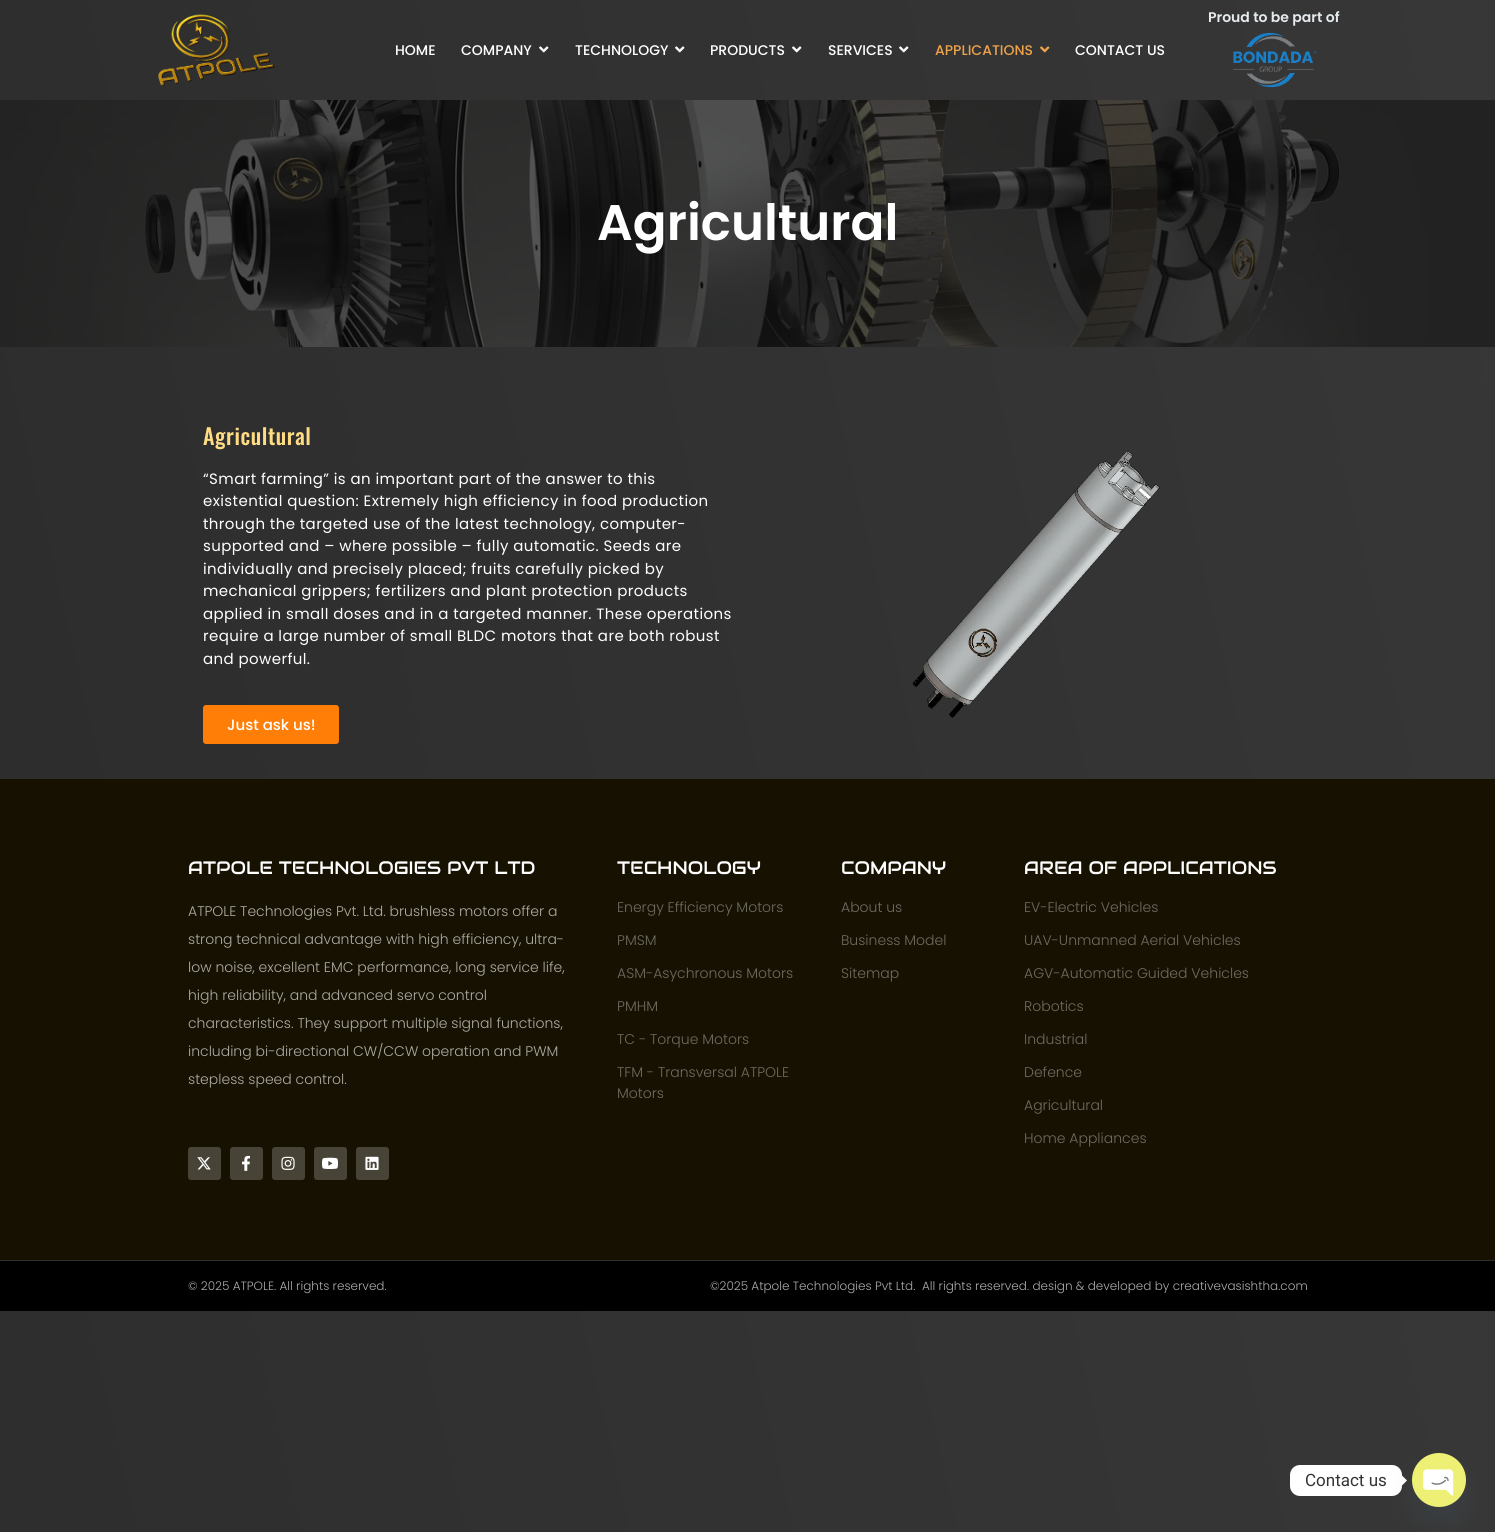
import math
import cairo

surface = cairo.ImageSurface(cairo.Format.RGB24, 1495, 1532)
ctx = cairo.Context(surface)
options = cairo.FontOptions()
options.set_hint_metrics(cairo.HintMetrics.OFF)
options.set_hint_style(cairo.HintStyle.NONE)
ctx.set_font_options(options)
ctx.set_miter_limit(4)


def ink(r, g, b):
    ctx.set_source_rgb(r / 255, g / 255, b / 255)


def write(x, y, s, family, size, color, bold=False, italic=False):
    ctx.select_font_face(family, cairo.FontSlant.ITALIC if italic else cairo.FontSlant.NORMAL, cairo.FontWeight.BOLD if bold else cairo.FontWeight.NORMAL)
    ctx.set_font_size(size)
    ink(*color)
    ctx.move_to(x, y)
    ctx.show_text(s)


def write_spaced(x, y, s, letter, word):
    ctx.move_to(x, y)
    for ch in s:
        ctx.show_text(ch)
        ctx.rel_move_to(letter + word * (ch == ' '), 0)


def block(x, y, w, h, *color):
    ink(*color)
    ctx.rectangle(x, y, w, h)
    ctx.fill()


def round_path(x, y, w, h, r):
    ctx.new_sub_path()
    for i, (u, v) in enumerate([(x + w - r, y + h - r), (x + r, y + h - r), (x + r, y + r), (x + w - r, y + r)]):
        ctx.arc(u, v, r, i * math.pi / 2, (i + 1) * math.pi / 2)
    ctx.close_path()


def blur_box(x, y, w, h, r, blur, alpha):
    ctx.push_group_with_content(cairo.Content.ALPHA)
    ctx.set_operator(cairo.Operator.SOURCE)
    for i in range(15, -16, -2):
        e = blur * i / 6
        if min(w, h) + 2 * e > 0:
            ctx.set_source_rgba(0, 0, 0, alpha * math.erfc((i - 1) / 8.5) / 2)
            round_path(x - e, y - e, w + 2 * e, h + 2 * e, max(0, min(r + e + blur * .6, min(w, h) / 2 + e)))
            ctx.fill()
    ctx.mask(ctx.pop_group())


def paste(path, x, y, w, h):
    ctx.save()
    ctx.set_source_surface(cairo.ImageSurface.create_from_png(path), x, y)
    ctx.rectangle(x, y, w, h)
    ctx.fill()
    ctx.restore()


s1 = dict(family="Poppins Medium", size=14, color=(255, 255, 255))
s2 = dict(family="Poppins Medium", size=14, color=(236, 163, 75))
s3 = dict(family="Poppins SemiBold", size=14, color=(229, 235, 238))
s4 = dict(family="Poppins SemiBold", size=50, color=(255, 255, 255))
s5 = dict(family="Poppins Medium", size=15, color=(255, 255, 255))
s6 = dict(family="Audiowide", size=18, color=(255, 255, 255))
s7 = dict(family="Poppins Light", size=14, color=(173, 172, 166))
s8 = dict(family="Poppins Light", size=14, color=(111, 107, 98))
s9 = dict(family="Poppins Light", size=12, color=(173, 173, 173))
s10 = dict(family="Roboto", size=17, color=(51, 51, 51))

ink(255, 255, 255)
ctx.paint()
gradient = cairo.LinearGradient(-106, 853, 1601, 458)
gradient.add_color_stop_rgba(0, 0.173, 0.173, 0.173, 1)
gradient.add_color_stop_rgba(1, 0.216, 0.216, 0.216, 1)
ctx.set_source(gradient)
ctx.rectangle(0, 0, 1495, 779)
ctx.fill()
gradient = cairo.LinearGradient(-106, 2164, 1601, 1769)
gradient.add_color_stop_rgba(0, 0.173, 0.173, 0.173, 1)
gradient.add_color_stop_rgba(1, 0.216, 0.216, 0.216, 1)
ctx.set_source(gradient)
ctx.rectangle(0, 1311, 1495, 221)
ctx.fill()
paste("pic1.png", 158, 14, 117, 72)
write(395, 55, "HOME", **s1)
write(461, 55, "COMPANY", **s1)
paste("pic2.png", 539, 46, 10, 7)
write(575, 55, "TECHNOLOGY", **s1)
paste("pic3.png", 675, 46, 10, 7)
write(710, 55, "PRODUCTS", **s1)
paste("pic4.png", 792, 46, 10, 7)
write(828, 55, "SERVICES", **s1)
paste("pic4.png", 899, 46, 10, 7)
write(935, 55, "APPLICATIONS", **s2)
paste("pic5.png", 1040, 46, 10, 7)
write(1075, 55, "CONTACT US", **s1)
write(1208, 22, "Proud to be part of", **s3)
paste("pic6.png", 1233, 32, 84, 56)
paste("pic7.png", 0, 100, 1495, 247)
write(597, 240, "Agricultural", **s4)
ctx.select_font_face("Oswald Medium")
ctx.set_font_size(22)
ink(255, 219, 132)
write_spaced(203, 445, "Agricultural", 0.6, 0)
ctx.select_font_face("Poppins")
ctx.set_font_size(15)
ink(255, 255, 255)
write_spaced(203, 484, "“Smart farming” is an important part of the answer to this", 0.4, 0)
write_spaced(203, 506, "existential question: Extremely high efficiency in food production", 0.4, 0)
write_spaced(203, 529, "through the targeted use of the latest technology, computer-", 0.4, 0)
write_spaced(203, 551, "supported and – where possible – fully automatic. Seeds are", 0.4, 0)
write_spaced(203, 574, "individually and precisely placed; fruits carefully picked by", 0.4, 0)
write_spaced(203, 596, "mechanical grippers; fertilizers and plant protection products", 0.4, 0)
write_spaced(203, 619, "applied in small doses and in a targeted manner. These operations", 0.4, 0)
write_spaced(203, 641, "require a large number of small BLDC motors that are both robust", 0.4, 0)
write_spaced(203, 664, "and powerful.", 0.4, 0)
ink(254, 126, 7)
round_path(203, 705, 136, 39, 3)
ctx.fill()
write(227, 730, "Just ask us!", **s5)
paste("pic8.png", 912, 451, 248, 267)
block(0, 779, 1495, 481, 22, 17, 1)
write(188, 874, "ATPOLE TECHNOLOGIES PVT LTD", **s6)
write(188, 916, "ATPOLE Technologies Pvt. Ltd. brushless motors offer a", **s7)
write(188, 944, "strong technical advantage with high efficiency, ultra-", **s7)
write(188, 972, "low noise, excellent EMC performance, long service life,", **s7)
write(188, 1000, "high reliability, and advanced servo control", **s7)
write(188, 1028, "characteristics. They support multiple signal functions,", **s7)
write(188, 1056, "including bi-directional CW/CCW operation and PWM", **s7)
write(188, 1084, "stepless speed control.", **s7)
ink(71, 67, 54)
round_path(188, 1147, 33, 33, 3)
ctx.fill()
paste("pic9.png", 197, 1157, 14, 13)
round_path(230, 1147, 33, 33, 3)
ctx.fill()
paste("pic10.png", 242, 1155, 8, 16)
round_path(272, 1147, 33, 33, 3)
ctx.fill()
paste("pic11.png", 281, 1156, 14, 14)
round_path(314, 1147, 33, 33, 3)
ctx.fill()
paste("pic12.png", 322, 1157, 16, 12)
round_path(356, 1147, 33, 33, 3)
ctx.fill()
paste("pic13.png", 365, 1156, 14, 14)
write(617, 874, "TECHNOLOGY", **s6)
write(617, 912, "Energy Efficiency Motors", **s8)
write(617, 945, "PMSM", **s8)
write(617, 978, "ASM-Asychronous Motors", **s8)
write(617, 1011, "PMHM", **s8)
write(617, 1044, "TC - Torque Motors", **s8)
write(617, 1077, "TFM - Transversal ATPOLE", **s8)
write(617, 1098, "Motors", **s8)
write(841, 874, "COMPANY", **s6)
write(841, 912, "About us", **s8)
write(841, 945, "Business Model", **s8)
write(841, 978, "Sitemap", **s8)
write(1024, 874, "AREA OF APPLICATIONS", **s6)
write(1024, 912, "EV-Electric Vehicles", **s8)
write(1024, 945, "UAV-Unmanned Aerial Vehicles", **s8)
write(1024, 978, "AGV-Automatic Guided Vehicles", **s8)
write(1024, 1011, "Robotics", **s8)
write(1024, 1044, "Industrial", **s8)
write(1024, 1077, "Defence", **s8)
write(1024, 1110, "Agricultural", **s8)
write(1024, 1143, "Home Appliances", **s8)
block(0, 1261, 1495, 50, 0, 0, 0)
block(0, 1260, 1495, 1, 48, 48, 48)
write(188, 1290, "© 2025 ATPOLE. All rights reserved.", **s9)
write(710, 1290, "©2025 Atpole Technologies Pvt Ltd.  All rights reserved. design & developed by creativevasishtha.com", **s9)
ink(255, 255, 255)
round_path(1290, 1465, 112, 31, 10)
ctx.fill()
write(1305, 1486, "Contact us", **s10)
ink(255, 255, 255)
ctx.new_path()
ctx.move_to(1402, 1485.5)
ctx.line_to(1402, 1475.5)
ctx.line_to(1407, 1480.5)
ctx.close_path()
ctx.fill()
ink(73, 104, 126)
blur_box(1412, 1469, 54, 54, 27, 12, 0.16)
paste("pic14.png", 1412, 1453, 54, 54)
surface.write_to_png("screenshot.png")
